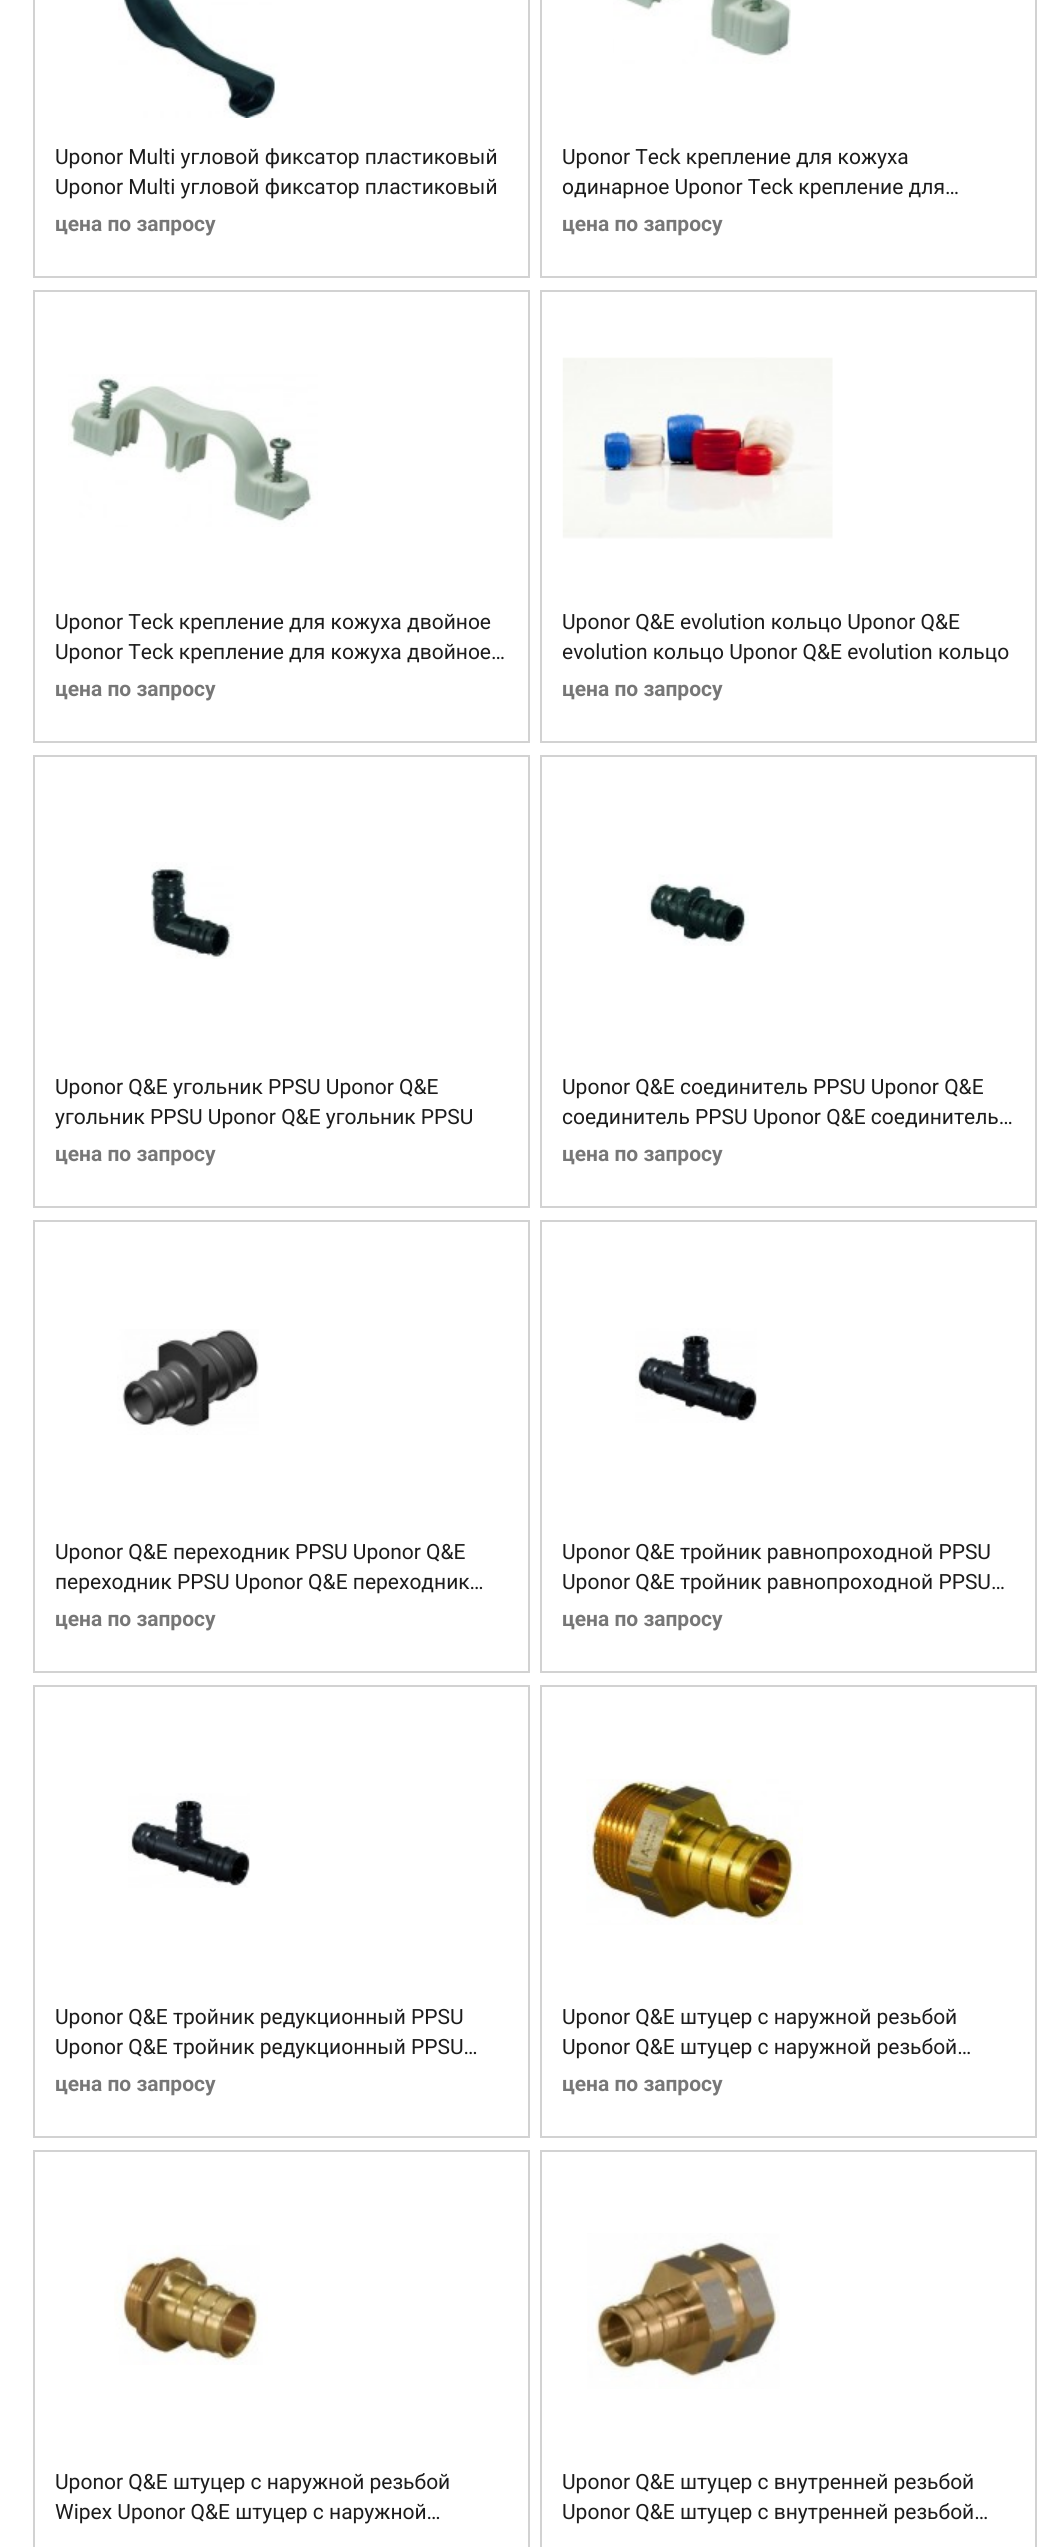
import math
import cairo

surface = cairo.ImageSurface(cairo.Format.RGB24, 1059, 2547)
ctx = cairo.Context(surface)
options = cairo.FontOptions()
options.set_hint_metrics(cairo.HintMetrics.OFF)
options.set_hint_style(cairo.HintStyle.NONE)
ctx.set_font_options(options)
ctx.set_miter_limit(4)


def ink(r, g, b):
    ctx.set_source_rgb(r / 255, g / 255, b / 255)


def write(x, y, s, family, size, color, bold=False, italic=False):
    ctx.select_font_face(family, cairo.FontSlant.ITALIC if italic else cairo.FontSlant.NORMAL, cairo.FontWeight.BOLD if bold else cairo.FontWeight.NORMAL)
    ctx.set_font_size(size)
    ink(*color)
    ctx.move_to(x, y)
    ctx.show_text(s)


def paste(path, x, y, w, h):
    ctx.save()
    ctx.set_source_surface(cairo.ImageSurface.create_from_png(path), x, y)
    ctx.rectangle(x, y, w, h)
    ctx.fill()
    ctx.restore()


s1 = dict(family="Roboto", size=21, color=(28, 28, 28))
s2 = dict(family="Roboto", size=21, color=(119, 119, 119), bold=True)

ink(255, 255, 255)
ctx.paint()
ctx.rectangle(34, -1, 495, 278)
ink(210, 210, 210)
ctx.stroke()
paste("pic1.png", 118, 0, 162, 118)
write(55, 164, "Uponor Multi угловой фиксатор пластиковый", **s1)
write(55, 194, "Uponor Multi угловой фиксатор пластиковый", **s1)
write(55, 231, "цена по запросу", **s2)
ctx.rectangle(541, -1, 495, 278)
ink(210, 210, 210)
ctx.stroke()
paste("pic2.png", 613, 0, 178, 64)
write(562, 164, "Uponor Teck крепление для кожуха", **s1)
write(562, 194, "одинарное Uponor Teck крепление для…", **s1)
write(562, 231, "цена по запросу", **s2)
ctx.rectangle(34, 291, 495, 451)
ink(210, 210, 210)
ctx.stroke()
paste("pic3.png", 68, 374, 250, 153)
write(55, 629, "Uponor Teck крепление для кожуха двойное", **s1)
write(55, 659, "Uponor Teck крепление для кожуха двойное…", **s1)
write(55, 696, "цена по запросу", **s2)
ctx.rectangle(541, 291, 495, 451)
ink(210, 210, 210)
ctx.stroke()
paste("pic4.png", 562, 357, 271, 182)
write(562, 629, "Uponor Q&E evolution кольцо Uponor Q&E", **s1)
write(562, 659, "evolution кольцо Uponor Q&E evolution кольцо", **s1)
write(562, 696, "цена по запросу", **s2)
ctx.rectangle(34, 756, 495, 451)
ink(210, 210, 210)
ctx.stroke()
paste("pic5.png", 150, 862, 84, 97)
write(55, 1094, "Uponor Q&E угольник PPSU Uponor Q&E", **s1)
write(55, 1124, "угольник PPSU Uponor Q&E угольник PPSU", **s1)
write(55, 1161, "цена по запросу", **s2)
ctx.rectangle(541, 756, 495, 451)
ink(210, 210, 210)
ctx.stroke()
paste("pic6.png", 647, 874, 102, 72)
write(562, 1094, "Uponor Q&E соединитель PPSU Uponor Q&E", **s1)
write(562, 1124, "соединитель PPSU Uponor Q&E соединитель…", **s1)
write(562, 1161, "цена по запросу", **s2)
ctx.rectangle(34, 1221, 495, 451)
ink(210, 210, 210)
ctx.stroke()
paste("pic7.png", 117, 1329, 142, 106)
write(55, 1559, "Uponor Q&E переходник PPSU Uponor Q&E", **s1)
write(55, 1589, "переходник PPSU Uponor Q&E переходник…", **s1)
write(55, 1626, "цена по запросу", **s2)
ctx.rectangle(541, 1221, 495, 451)
ink(210, 210, 210)
ctx.stroke()
paste("pic8.png", 635, 1328, 122, 95)
write(562, 1559, "Uponor Q&E тройник равнопроходной PPSU", **s1)
write(562, 1589, "Uponor Q&E тройник равнопроходной PPSU…", **s1)
write(562, 1626, "цена по запросу", **s2)
ctx.rectangle(34, 1686, 495, 451)
ink(210, 210, 210)
ctx.stroke()
paste("pic9.png", 128, 1793, 122, 95)
write(55, 2024, "Uponor Q&E тройник редукционный PPSU", **s1)
write(55, 2054, "Uponor Q&E тройник редукционный PPSU…", **s1)
write(55, 2091, "цена по запросу", **s2)
ctx.rectangle(541, 1686, 495, 451)
ink(210, 210, 210)
ctx.stroke()
paste("pic10.png", 586, 1779, 217, 146)
write(562, 2024, "Uponor Q&E штуцер с наружной резьбой", **s1)
write(562, 2054, "Uponor Q&E штуцер с наружной резьбой…", **s1)
write(562, 2091, "цена по запросу", **s2)
ctx.rectangle(34, 2151, 495, 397)
ink(210, 210, 210)
ctx.stroke()
paste("pic11.png", 114, 2245, 154, 120)
write(55, 2489, "Uponor Q&E штуцер с наружной резьбой", **s1)
write(55, 2519, "Wipex Uponor Q&E штуцер с наружной…", **s1)
ctx.rectangle(541, 2151, 495, 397)
ink(210, 210, 210)
ctx.stroke()
paste("pic12.png", 587, 2233, 193, 156)
write(562, 2489, "Uponor Q&E штуцер с внутренней резьбой", **s1)
write(562, 2519, "Uponor Q&E штуцер с внутренней резьбой…", **s1)
surface.write_to_png("screenshot.png")
